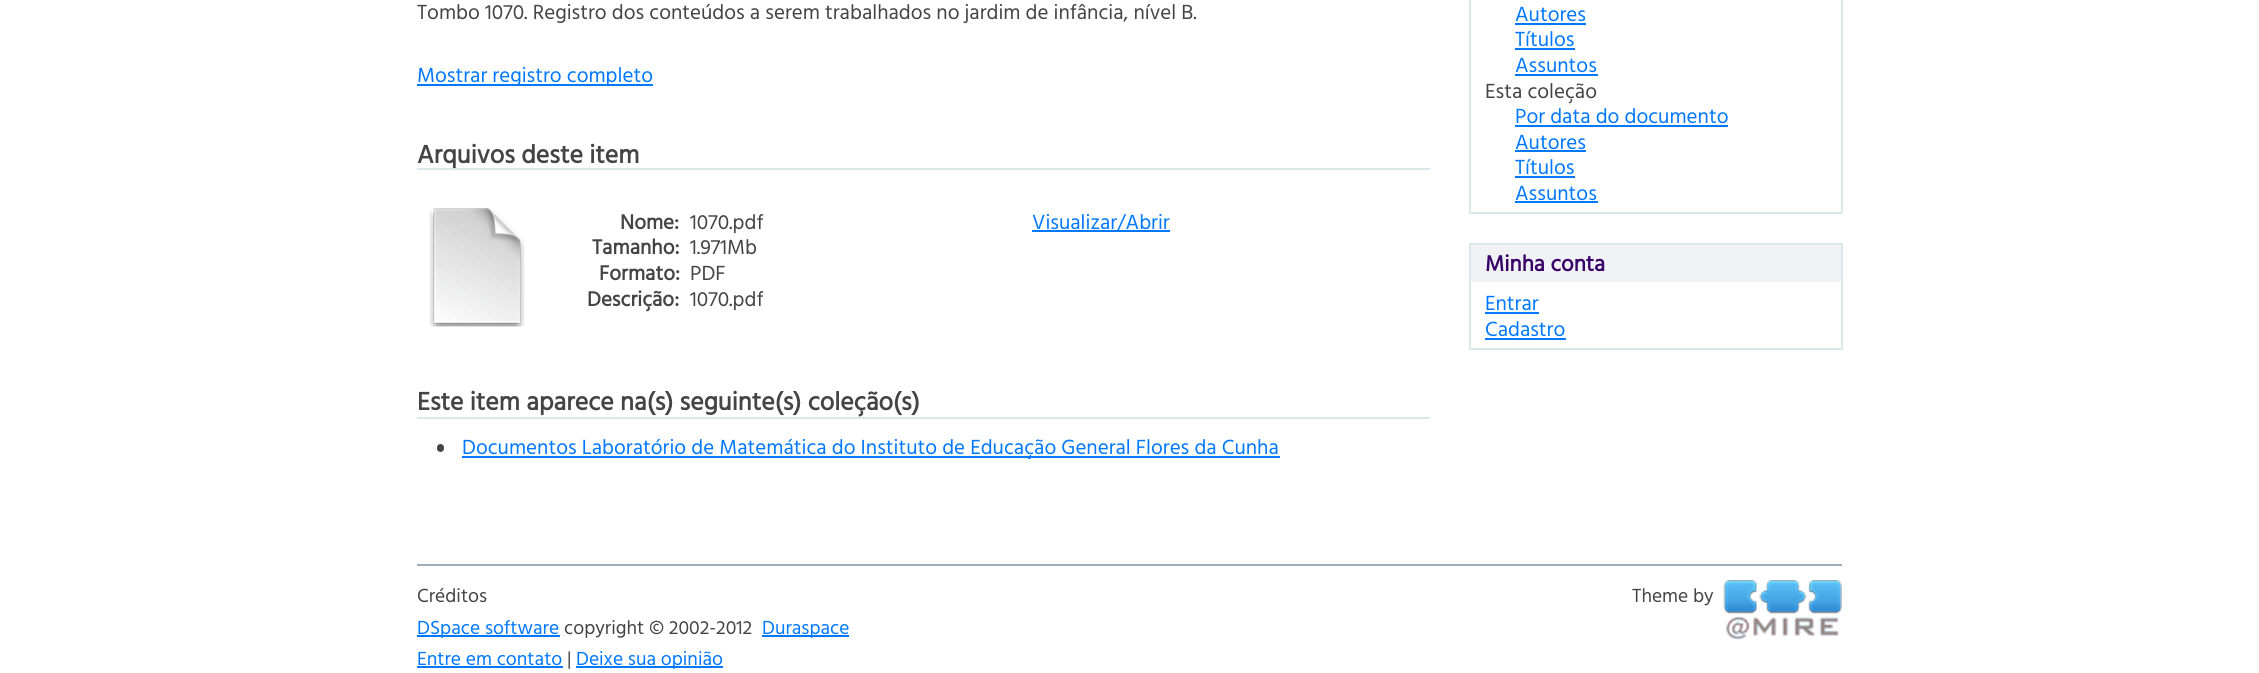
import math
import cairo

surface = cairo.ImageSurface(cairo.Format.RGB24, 2259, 673)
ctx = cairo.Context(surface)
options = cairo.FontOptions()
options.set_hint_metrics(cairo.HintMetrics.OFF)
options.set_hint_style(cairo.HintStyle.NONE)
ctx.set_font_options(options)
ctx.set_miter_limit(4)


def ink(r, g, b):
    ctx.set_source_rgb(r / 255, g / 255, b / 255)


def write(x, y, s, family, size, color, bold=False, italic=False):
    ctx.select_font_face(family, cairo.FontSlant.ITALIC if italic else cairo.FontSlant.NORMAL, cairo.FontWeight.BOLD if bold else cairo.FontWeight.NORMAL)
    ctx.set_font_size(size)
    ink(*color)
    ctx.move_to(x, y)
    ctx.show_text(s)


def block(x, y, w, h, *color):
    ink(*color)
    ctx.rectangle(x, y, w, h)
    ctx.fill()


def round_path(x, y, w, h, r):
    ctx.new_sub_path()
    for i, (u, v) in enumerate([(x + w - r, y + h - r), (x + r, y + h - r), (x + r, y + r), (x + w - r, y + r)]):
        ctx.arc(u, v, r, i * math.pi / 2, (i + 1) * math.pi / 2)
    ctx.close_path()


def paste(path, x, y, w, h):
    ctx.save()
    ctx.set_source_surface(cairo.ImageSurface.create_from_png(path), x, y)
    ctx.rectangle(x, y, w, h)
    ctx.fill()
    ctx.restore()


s1 = dict(family="Hind Vadodara", size=21, color=(68, 68, 68))
s2 = dict(family="Hind Vadodara", size=21, color=(0, 120, 255))
s3 = dict(family="Hind Vadodara", size=25.8, color=(68, 68, 68), bold=True)
s4 = dict(family="Hind Vadodara", size=21, color=(68, 68, 68), bold=True)
s5 = dict(family="Hind Vadodara", size=22.5, color=(57, 0, 103), bold=True)
s6 = dict(family="Hind Vadodara", size=19.5, color=(68, 68, 68))
s7 = dict(family="Hind Vadodara", size=19.5, color=(0, 120, 255))

ink(255, 255, 255)
ctx.paint()
write(417, 19, "Tombo 1070. Registro dos conteúdos a serem trabalhados no jardim de infância, nível B.", **s1)
block(417, 84, 236, 2, 0, 120, 255)
write(417, 82, "Mostrar registro completo", **s2)
block(417, 168, 1013, 2, 216, 232, 235)
write(417, 163, "Arquivos deste item", **s3)
paste("pic1.png", 429, 208, 96, 119)
write(620, 229, "Nome:", **s4)
write(690, 229, "1070.pdf", **s1)
write(592, 254, "Tamanho:", **s4)
write(690, 254, "1.971Mb", **s1)
write(599, 280, "Formato:", **s4)
write(690, 280, "PDF", **s1)
write(587, 306, "Descrição:", **s4)
write(690, 306, "1070.pdf", **s1)
block(1032, 230, 93, 2, 0, 120, 255)
write(1032, 229, "Visualizar/Abrir", **s2)
block(1125, 230, 45, 2, 0, 120, 255)
block(417, 417, 1013, 2, 216, 232, 235)
write(417, 410, "Este item aparece na(s) seguinte(s) coleção(s)", **s3)
round_path(437, 444, 7, 8, 3.5)
ctx.fill()
block(462, 456, 818, 2, 0, 120, 255)
write(462, 454, "Documentos Laboratório de Matemática do Instituto de Educação General Flores da Cunha", **s2)
block(1841, 0, 2, 213, 216, 232, 235)
block(1469, 212, 373, 2, 216, 232, 235)
block(1469, 0, 2, 213, 216, 232, 235)
write(1515, 21, "Autores", **s2)
block(1515, 23, 71, 2, 0, 120, 255)
write(1515, 46, "Títulos", **s2)
block(1515, 48, 60, 2, 0, 120, 255)
write(1515, 72, "Assuntos", **s2)
block(1515, 74, 83, 2, 0, 120, 255)
write(1485, 98, "Esta coleção", **s1)
write(1515, 123, "Por data do documento", **s2)
block(1515, 125, 213, 2, 0, 120, 255)
write(1515, 149, "Autores", **s2)
block(1515, 150, 71, 2, 0, 120, 255)
write(1515, 174, "Títulos", **s2)
block(1515, 176, 60, 2, 0, 120, 255)
write(1515, 200, "Assuntos", **s2)
block(1515, 201, 83, 2, 0, 120, 255)
block(1471, 245, 370, 37, 240, 242, 245)
block(1469, 243, 373, 2, 216, 232, 235)
block(1841, 243, 2, 107, 216, 232, 235)
block(1469, 243, 2, 39, 216, 232, 235)
write(1485, 271, "Minha conta", **s5)
block(1469, 348, 373, 2, 216, 232, 235)
block(1469, 282, 2, 68, 216, 232, 235)
write(1485, 310, "Entrar", **s2)
block(1485, 312, 54, 2, 0, 120, 255)
write(1485, 336, "Cadastro", **s2)
block(1485, 338, 81, 2, 0, 120, 255)
block(417, 564, 1425, 2, 156, 172, 186)
write(417, 602, "Créditos", **s6)
block(417, 635, 143, 2, 0, 120, 255)
write(417, 634, "DSpace software", **s7)
write(564, 634, "copyright © 2002-2012", **s6)
block(762, 635, 87, 2, 0, 120, 255)
write(762, 634, "Duraspace", **s7)
write(1632, 602, "Theme by", **s6)
paste("pic2.png", 1723, 580, 119, 60)
write(417, 665, "Entre em contato", **s7)
block(417, 666, 146, 2, 0, 120, 255)
write(567, 665, "|", **s6)
block(576, 666, 147, 2, 0, 120, 255)
write(576, 665, "Deixe sua opinião", **s7)
surface.write_to_png("screenshot.png")
